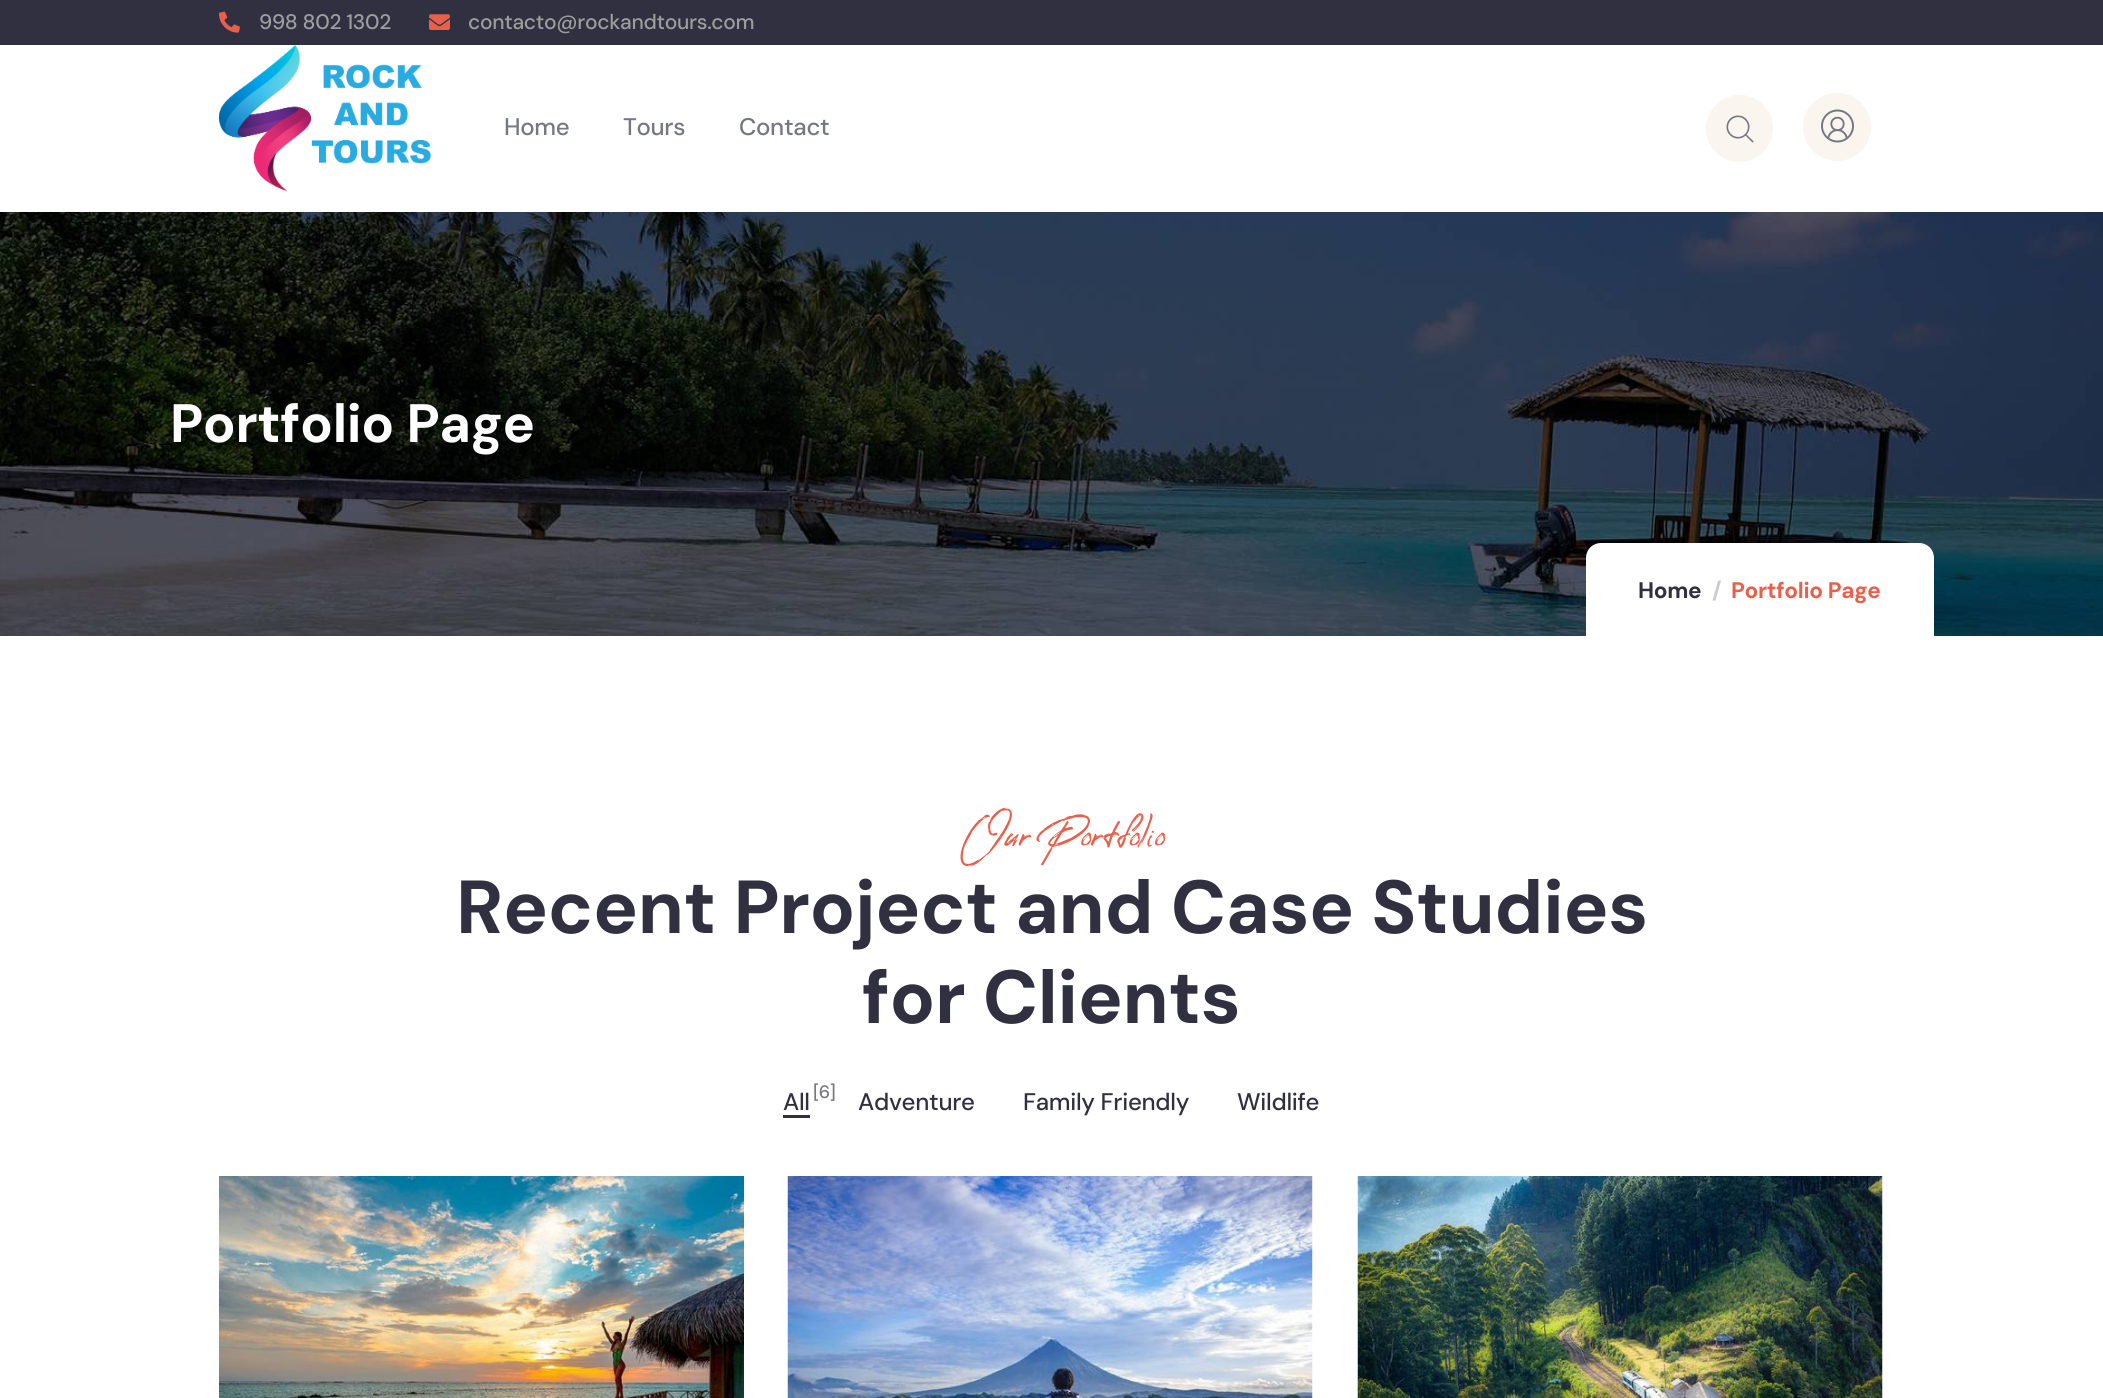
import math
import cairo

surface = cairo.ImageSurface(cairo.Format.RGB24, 2103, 1398)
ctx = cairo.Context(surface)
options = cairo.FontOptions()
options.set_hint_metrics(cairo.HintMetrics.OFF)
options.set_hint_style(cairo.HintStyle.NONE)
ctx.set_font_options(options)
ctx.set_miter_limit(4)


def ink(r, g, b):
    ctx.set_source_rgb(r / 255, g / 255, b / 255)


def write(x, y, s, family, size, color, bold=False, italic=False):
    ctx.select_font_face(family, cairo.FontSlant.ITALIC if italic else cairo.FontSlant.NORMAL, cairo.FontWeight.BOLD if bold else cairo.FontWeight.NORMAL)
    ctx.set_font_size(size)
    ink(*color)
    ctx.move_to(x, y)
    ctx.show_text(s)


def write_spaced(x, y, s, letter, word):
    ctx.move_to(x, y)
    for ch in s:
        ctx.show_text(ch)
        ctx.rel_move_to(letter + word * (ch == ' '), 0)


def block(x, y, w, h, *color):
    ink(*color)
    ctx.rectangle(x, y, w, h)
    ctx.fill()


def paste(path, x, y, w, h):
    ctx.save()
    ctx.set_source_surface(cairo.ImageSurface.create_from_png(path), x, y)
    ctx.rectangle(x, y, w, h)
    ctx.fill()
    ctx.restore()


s1 = dict(family="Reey", size=30, color=(232, 96, 76))

ink(255, 255, 255)
ctx.paint()
block(0, 0, 2103, 45, 49, 48, 65)
paste("pic1.png", 219, 11, 21, 22)
ctx.select_font_face("DM Sans Medium")
ctx.set_font_size(21)
ink(157, 157, 157)
write_spaced(259, 29, "998 802 1302", -0.3, 0)
paste("pic2.png", 429, 14, 21, 16)
write_spaced(468, 29, "contacto@rockandtours.com", -0.3, 0)
paste("pic3.png", 219, 45, 213, 147)
ctx.set_font_size(24)
ink(117, 119, 131)
write_spaced(504, 135, "Home", -0.3, 0)
write_spaced(623, 135, "Tours", -0.3, 0)
write_spaced(739, 135, "Contact", -0.3, 0)
ink(250, 245, 238)
ctx.new_path()
ctx.arc(1739.5, 128.5, 33.5, 0, 2 * math.pi)
ctx.fill()
paste("pic4.png", 1726, 115, 28, 28)
ctx.arc(1837, 127, 34, 0, 2 * math.pi)
ctx.fill()
paste("pic5.png", 1821, 109, 33, 34)
paste("pic6.png", 0, 212, 2103, 424)
ctx.select_font_face("DM Sans", cairo.FontSlant.NORMAL, cairo.FontWeight.BOLD)
ctx.set_font_size(54)
ink(255, 255, 255)
write_spaced(170, 442, "Portfolio Page", -0.3, 0)
ctx.new_path()
ctx.move_to(1601, 543)
ctx.line_to(1919, 543)
ctx.curve_to(1927.5, 543, 1934, 549.5, 1934, 558)
ctx.line_to(1934, 636)
ctx.line_to(1586, 636)
ctx.line_to(1586, 558)
ctx.curve_to(1586, 549.5, 1592.5, 543, 1601, 543)
ctx.close_path()
ctx.fill()
ctx.set_font_size(22.5)
ink(49, 48, 65)
write_spaced(1638, 598, "Home", -0.3, 0)
ink(204, 204, 204)
write_spaced(1712, 598, "/", -0.3, 0)
ink(232, 96, 76)
write_spaced(1731, 598, "Portfolio Page", -0.3, 0)
write(961, 847, "Our Portfolio", **s1)
ctx.select_font_face("DM Sans", cairo.FontSlant.NORMAL, cairo.FontWeight.BOLD)
ctx.set_font_size(75)
ink(49, 48, 65)
write_spaced(456, 933, "Recent Project and Case Studies", -0.3, 0)
write_spaced(862, 1023, "for Clients", -0.3, 0)
ctx.select_font_face("DM Sans Medium")
ctx.set_font_size(24)
write_spaced(783, 1110, "All", -0.3, 0)
ctx.set_font_size(18)
ink(117, 119, 131)
write_spaced(813, 1098, "[6]", -0.3, 0)
block(783, 1115, 27, 3, 49, 48, 65)
ctx.set_font_size(24)
write_spaced(858, 1110, "Adventure", -0.3, 0)
write_spaced(1023, 1110, "Family Friendly", -0.3, 0)
write_spaced(1237, 1110, "Wildlife", -0.3, 0)
paste("pic7.png", 219, 1176, 525, 222)
paste("pic8.png", 787, 1176, 526, 222)
paste("pic9.png", 1357, 1176, 526, 222)
surface.write_to_png("screenshot.png")
